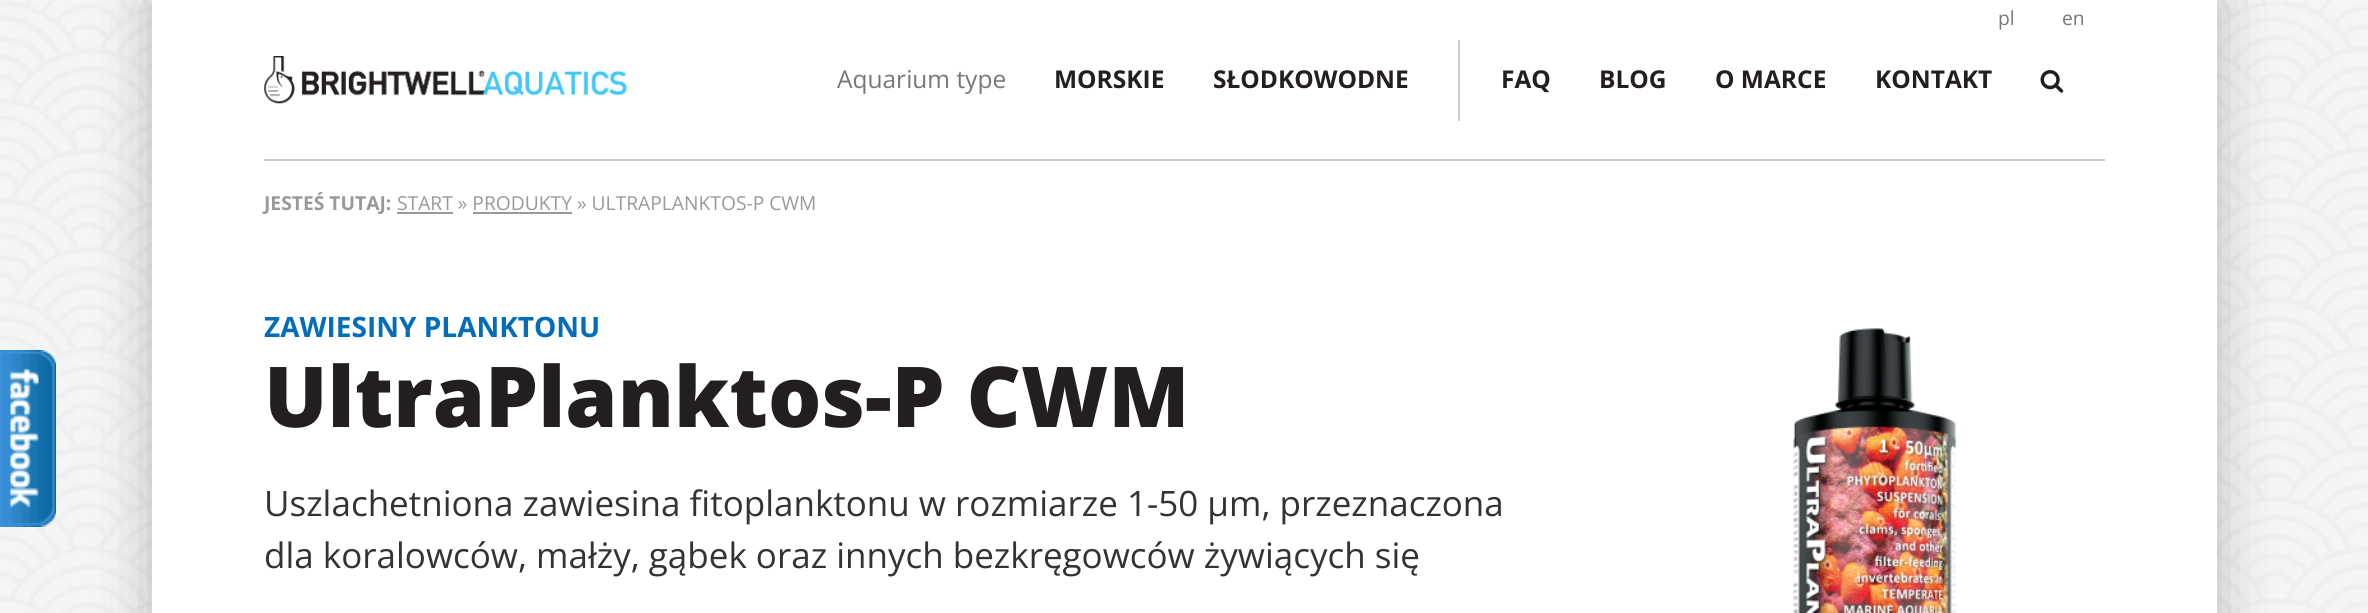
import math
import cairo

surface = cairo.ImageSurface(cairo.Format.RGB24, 2368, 613)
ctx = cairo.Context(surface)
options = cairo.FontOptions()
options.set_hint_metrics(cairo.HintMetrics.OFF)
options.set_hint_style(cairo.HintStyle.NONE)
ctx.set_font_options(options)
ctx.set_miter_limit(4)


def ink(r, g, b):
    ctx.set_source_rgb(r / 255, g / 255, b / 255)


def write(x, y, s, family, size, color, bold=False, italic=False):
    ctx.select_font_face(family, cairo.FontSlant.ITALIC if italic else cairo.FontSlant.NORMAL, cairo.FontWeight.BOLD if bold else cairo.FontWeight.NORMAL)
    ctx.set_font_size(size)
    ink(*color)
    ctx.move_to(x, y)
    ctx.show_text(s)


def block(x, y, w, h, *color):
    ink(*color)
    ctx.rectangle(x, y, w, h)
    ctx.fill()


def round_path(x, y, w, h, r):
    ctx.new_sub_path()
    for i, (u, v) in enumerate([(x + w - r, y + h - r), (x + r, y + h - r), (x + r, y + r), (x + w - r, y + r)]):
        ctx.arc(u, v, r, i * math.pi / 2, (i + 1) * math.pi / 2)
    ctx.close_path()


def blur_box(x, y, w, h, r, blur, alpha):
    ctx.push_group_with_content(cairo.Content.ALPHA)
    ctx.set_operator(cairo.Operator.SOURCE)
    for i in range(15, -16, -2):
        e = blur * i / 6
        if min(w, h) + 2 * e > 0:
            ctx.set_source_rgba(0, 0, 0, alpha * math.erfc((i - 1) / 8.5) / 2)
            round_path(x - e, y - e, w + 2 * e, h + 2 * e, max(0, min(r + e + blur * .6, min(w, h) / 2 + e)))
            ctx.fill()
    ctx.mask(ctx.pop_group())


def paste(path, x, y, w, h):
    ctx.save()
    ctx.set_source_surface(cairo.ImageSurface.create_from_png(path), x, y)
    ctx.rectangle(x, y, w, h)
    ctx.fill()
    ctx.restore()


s1 = dict(family="Open Sans", size=19.25, color=(119, 119, 119))
s2 = dict(family="Open Sans", size=24.5, color=(119, 119, 119))
s3 = dict(family="Open Sans", size=24.5, color=(35, 31, 32), bold=True)
s4 = dict(family="Open Sans", size=19.25, color=(153, 153, 153), bold=True)
s5 = dict(family="Open Sans", size=19.25, color=(153, 153, 153))
s6 = dict(family="Open Sans", size=28, color=(4, 109, 183), bold=True)
s7 = dict(family="Open Sans ExtraBold", size=84, color=(35, 31, 32))
s8 = dict(family="Open Sans", size=35, color=(51, 51, 51))

ink(255, 255, 255)
ctx.paint()
paste("pic1.png", 0, 0, 2368, 613)
paste("pic2.png", 0, 350, 56, 177)
ink(0, 0, 0)
blur_box(152, 0, 2065, 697, 0, 28, 0.25)
block(152, 0, 2065, 613, 255, 255, 255)
paste("pic3.png", 264, 56, 363, 48)
write(1998, 25, "pl", **s1)
write(2062, 25, "en", **s1)
write(837, 88, "Aquarium type", **s2)
write(1054, 88, "MORSKIE", **s3)
write(1213, 88, "SŁODKOWODNE", **s3)
block(1458, 40, 2, 81, 204, 204, 204)
write(1501, 88, "FAQ", **s3)
write(1599, 88, "BLOG", **s3)
write(1715, 88, "O MARCE", **s3)
write(1875, 88, "KONTAKT", **s3)
paste("pic4.png", 2040, 70, 24, 23)
block(264, 159, 1841, 2, 204, 204, 204)
write(264, 210, "JESTEŚ TUTAJ:", **s4)
write(397, 210, "START » PRODUKTY » ULTRAPLANKTOS-P CWM", **s5)
block(397, 212, 56, 2, 153, 153, 153)
block(473, 212, 99, 2, 153, 153, 153)
write(264, 337, "ZAWIESINY PLANKTONU", **s6)
write(264, 427, "UltraPlanktos-P CWM", **s7)
write(264, 516, "Uszlachetniona zawiesina fitoplanktonu w rozmiarze 1-50 µm, przeznaczona", **s8)
write(264, 568, "dla koralowców, małży, gąbek oraz innych bezkręgowców żywiących się", **s8)
paste("pic5.png", 1793, 328, 163, 285)
surface.write_to_png("screenshot.png")
